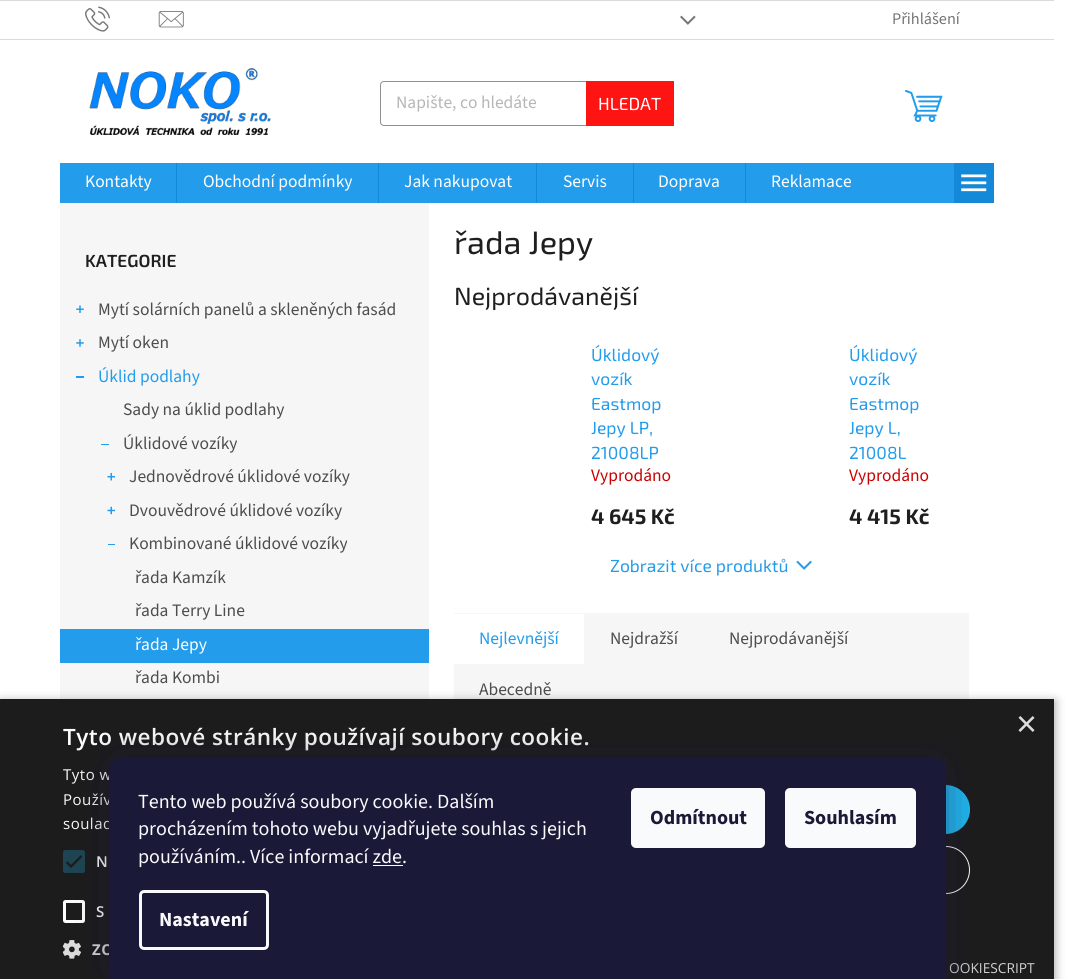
import math
import cairo

surface = cairo.ImageSurface(cairo.Format.RGB24, 1072, 979)
ctx = cairo.Context(surface)
options = cairo.FontOptions()
options.set_hint_metrics(cairo.HintMetrics.OFF)
options.set_hint_style(cairo.HintStyle.NONE)
ctx.set_font_options(options)
ctx.set_miter_limit(4)


def ink(r, g, b):
    ctx.set_source_rgb(r / 255, g / 255, b / 255)


def write(x, y, s, family, size, color, bold=False, italic=False):
    ctx.select_font_face(family, cairo.FontSlant.ITALIC if italic else cairo.FontSlant.NORMAL, cairo.FontWeight.BOLD if bold else cairo.FontWeight.NORMAL)
    ctx.set_font_size(size)
    ink(*color)
    ctx.move_to(x, y)
    ctx.show_text(s)


def write_spaced(x, y, s, letter, word):
    ctx.move_to(x, y)
    for ch in s:
        ctx.show_text(ch)
        ctx.rel_move_to(letter + word * (ch == ' '), 0)


def block(x, y, w, h, *color):
    ink(*color)
    ctx.rectangle(x, y, w, h)
    ctx.fill()


def round_path(x, y, w, h, r):
    ctx.new_sub_path()
    for i, (u, v) in enumerate([(x + w - r, y + h - r), (x + r, y + h - r), (x + r, y + r), (x + w - r, y + r)]):
        ctx.arc(u, v, r, i * math.pi / 2, (i + 1) * math.pi / 2)
    ctx.close_path()


def blur_box(x, y, w, h, r, blur, alpha):
    ctx.push_group_with_content(cairo.Content.ALPHA)
    ctx.set_operator(cairo.Operator.SOURCE)
    for i in range(15, -16, -2):
        e = blur * i / 6
        if min(w, h) + 2 * e > 0:
            ctx.set_source_rgba(0, 0, 0, alpha * math.erfc((i - 1) / 8.5) / 2)
            round_path(x - e, y - e, w + 2 * e, h + 2 * e, max(0, min(r + e + blur * .6, min(w, h) / 2 + e)))
            ctx.fill()
    ctx.mask(ctx.pop_group())


def paste(path, x, y, w, h):
    ctx.save()
    ctx.set_source_surface(cairo.ImageSurface.create_from_png(path), x, y)
    ctx.rectangle(x, y, w, h)
    ctx.fill()
    ctx.restore()


s1 = dict(family="Source Sans 3", size=16.25, color=(118, 118, 118))
s2 = dict(family="Source Sans 3", size=17.5, color=(182, 182, 182))
s3 = dict(family="Exo 2", size=17.5, color=(255, 255, 255))
s4 = dict(family="Source Sans 3", size=17.5, color=(255, 255, 255))
s5 = dict(family="Exo 2 SemiBold", size=17.5, color=(31, 31, 31))
s6 = dict(family="Source Sans 3", size=17.5, color=(77, 77, 77))
s7 = dict(family="Source Sans 3", size=17.5, color=(35, 156, 235))
s8 = dict(family="Exo 2", size=32.5, color=(31, 31, 31))
s9 = dict(family="Exo 2", size=25, color=(31, 31, 31))
s10 = dict(family="Exo 2", size=17.5, color=(35, 156, 235))
s11 = dict(family="Source Sans 3", size=17.5, color=(203, 0, 0))
s12 = dict(family="Exo 2", size=21, color=(31, 31, 31), bold=True)
s13 = dict(family="Liberation Sans", size=36, color=(221, 221, 221))
s14 = dict(family="Open Sans", size=13.75, color=(210, 210, 210))
s15 = dict(family="Source Sans 3", size=20, color=(248, 250, 251))
s16 = dict(family="Source Sans 3", size=20, color=(248, 250, 251), bold=True)
s17 = dict(family="Source Sans 3", size=20, color=(26, 25, 55), bold=True)

ink(255, 255, 255)
ctx.paint()
block(0, 0, 1054, 1, 218, 218, 218)
block(0, 39, 1054, 1, 218, 218, 218)
paste("pic1.png", 85, 6, 25, 26)
paste("pic2.png", 158, 11, 26, 17)
paste("pic3.png", 680, 15, 16, 10)
write(892, 24, "Přihlášení", **s1)
paste("pic4.png", 89, 68, 182, 67)
round_path(380.5, 81.5, 293, 44, 3.5)
ink(145, 145, 145)
ctx.set_line_width(1)
ctx.stroke()
write(396, 108, "Napište, co hledáte", **s2)
block(586, 81, 88, 45, 255, 20, 20)
write(598, 110, "HLEDAT", **s3)
paste("pic5.png", 905, 90, 38, 32)
block(60, 163, 894, 40, 35, 156, 235)
write(85, 187, "Kontakty", **s4)
block(176, 163, 1, 40, 20, 137, 215)
write(203, 187, "Obchodní podmínky", **s4)
block(378, 163, 1, 40, 20, 137, 215)
write(404, 187, "Jak nakupovat", **s4)
block(536, 163, 1, 40, 20, 137, 215)
write(563, 187, "Servis", **s4)
block(633, 163, 1, 40, 20, 137, 215)
write(658, 187, "Doprava", **s4)
block(745, 163, 1, 40, 20, 137, 215)
write(771, 187, "Reklamace", **s4)
block(954, 163, 40, 40, 20, 137, 215)
paste("pic6.png", 961, 174, 26, 18)
block(60, 203, 369, 496, 246, 246, 246)
write(85, 267, "KATEGORIE", **s5)
paste("pic7.png", 76, 305, 8, 8)
write(98, 315, "Mytí solárních panelů a skleněných fasád", **s6)
paste("pic8.png", 76, 339, 8, 8)
write(98, 348, "Mytí oken", **s6)
block(76, 376, 8, 2, 35, 156, 235)
write(98, 382, "Úklid podlahy", **s7)
write(123, 415, "Sady na úklid podlahy", **s6)
block(101, 444, 8, 1, 35, 156, 235)
write(123, 449, "Úklidové vozíky", **s6)
paste("pic9.png", 107, 472, 8, 9)
write(129, 482, "Jednovědrové úklidové vozíky", **s6)
paste("pic10.png", 107, 506, 8, 9)
write(129, 516, "Dvouvědrové úklidové vozíky", **s6)
block(108, 544, 7, 1, 35, 156, 235)
write(129, 549, "Kombinované úklidové vozíky", **s6)
write(135, 583, "řada Kamzík", **s6)
write(135, 616, "řada Terry Line", **s6)
block(60, 629, 369, 34, 35, 156, 235)
write(135, 650, "řada Jepy", **s4)
write(135, 683, "řada Kombi", **s6)
write(454, 254, "řada Jepy", **s8)
write(454, 305, "Nejprodávanější", **s9)
write(591, 361, "Úklidový", **s10)
write(591, 385, "vozík", **s10)
write(591, 410, "Eastmop", **s10)
write(591, 434, "Jepy LP,", **s10)
write(591, 459, "21008LP", **s10)
write(591, 481, "Vyprodáno", **s11)
write(591, 524, "4 645 Kč", **s12)
write(849, 361, "Úklidový", **s10)
write(849, 385, "vozík", **s10)
write(849, 410, "Eastmop", **s10)
write(849, 434, "Jepy L,", **s10)
write(849, 459, "21008L", **s10)
write(849, 481, "Vyprodáno", **s11)
write(849, 524, "4 415 Kč", **s12)
write(610, 572, "Zobrazit více produktů", **s10)
paste("pic11.png", 796, 560, 16, 10)
block(454, 613, 515, 86, 246, 246, 246)
block(454, 614, 130, 50, 255, 255, 255)
write(479, 644, "Nejlevnější", **s7)
write(610, 644, "Nejdražší", **s6)
write(729, 644, "Nejprodávanější", **s6)
write(479, 695, "Abecedně", **s6)
ink(0, 0, 0)
blur_box(1, 701, 1054, 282, 0, 5, 0.35)
block(0, 699, 1054, 280, 28, 28, 28)
write(1016, 736, "×", **s13)
ctx.select_font_face("Open Sans SemiBold")
ctx.set_font_size(22.5)
ink(255, 255, 255)
write_spaced(63, 745, "Tyto webové stránky používají soubory cookie.", 0.5, 0)
ctx.select_font_face("Open Sans")
ctx.set_font_size(15)
write_spaced(63, 780, "Tyto w", 0.5, 0)
write_spaced(63, 805, "Použív", 0.5, 0)
write_spaced(63, 829, "soulad", 0.5, 0)
ink(30, 69, 83)
round_path(63, 850, 22, 23, 2.5)
ctx.fill()
ctx.new_path()
ctx.move_to(66.5, 862)
ctx.line_to(71, 866.5)
ctx.line_to(81.5, 856)
ink(28, 28, 28)
ctx.set_line_width(2.3)
ctx.stroke()
ctx.select_font_face("Open Sans SemiBold")
ink(255, 255, 255)
write_spaced(96, 867, "N", 1, 0)
round_path(64.5, 901.5, 19, 20, 1)
ctx.set_line_width(3)
ctx.stroke()
write_spaced(96, 917, "S", 1, 0)
paste("pic12.png", 63, 940, 18, 19)
ctx.select_font_face("Open Sans", cairo.FontSlant.NORMAL, cairo.FontWeight.BOLD)
ink(221, 221, 221)
write_spaced(92, 955, "ZO", 0.5, 0)
ink(34, 184, 240)
round_path(685, 785, 285, 49, 24.5)
ctx.fill()
round_path(685.5, 846.5, 284, 47, 23.5)
ink(255, 255, 255)
ctx.set_line_width(1)
ctx.stroke()
write(949, 973, "OOKIESCRIPT", **s14)
ink(27, 25, 57)
blur_box(109, 758, 837, 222, 10, 19, 0.5)
ink(26, 25, 55)
ctx.new_path()
ctx.move_to(119, 758)
ctx.line_to(936, 758)
ctx.curve_to(941.5, 758, 946, 762.5, 946, 768)
ctx.line_to(946, 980)
ctx.line_to(109, 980)
ctx.line_to(109, 768)
ctx.curve_to(109, 762.5, 113.5, 758, 119, 758)
ctx.close_path()
ctx.fill()
write(138, 808, "Tento web používá soubory cookie. Dalším", **s15)
write(138, 835, "procházením tohoto webu vyjadřujete souhlas s jejich", **s15)
write(138, 863, "používáním.. Více informací zde.", **s15)
block(373, 865, 30, 1, 248, 250, 251)
round_path(140.5, 891.5, 127, 57, 3.5)
ctx.set_line_width(3)
ctx.stroke()
write(159, 926, "Nastavení", **s16)
round_path(631, 788, 134, 60, 5)
ctx.fill()
write(650, 824, "Odmítnout", **s17)
ink(248, 250, 251)
round_path(785, 788, 131, 60, 5)
ctx.fill()
write(804, 824, "Souhlasím", **s17)
surface.write_to_png("screenshot.png")
